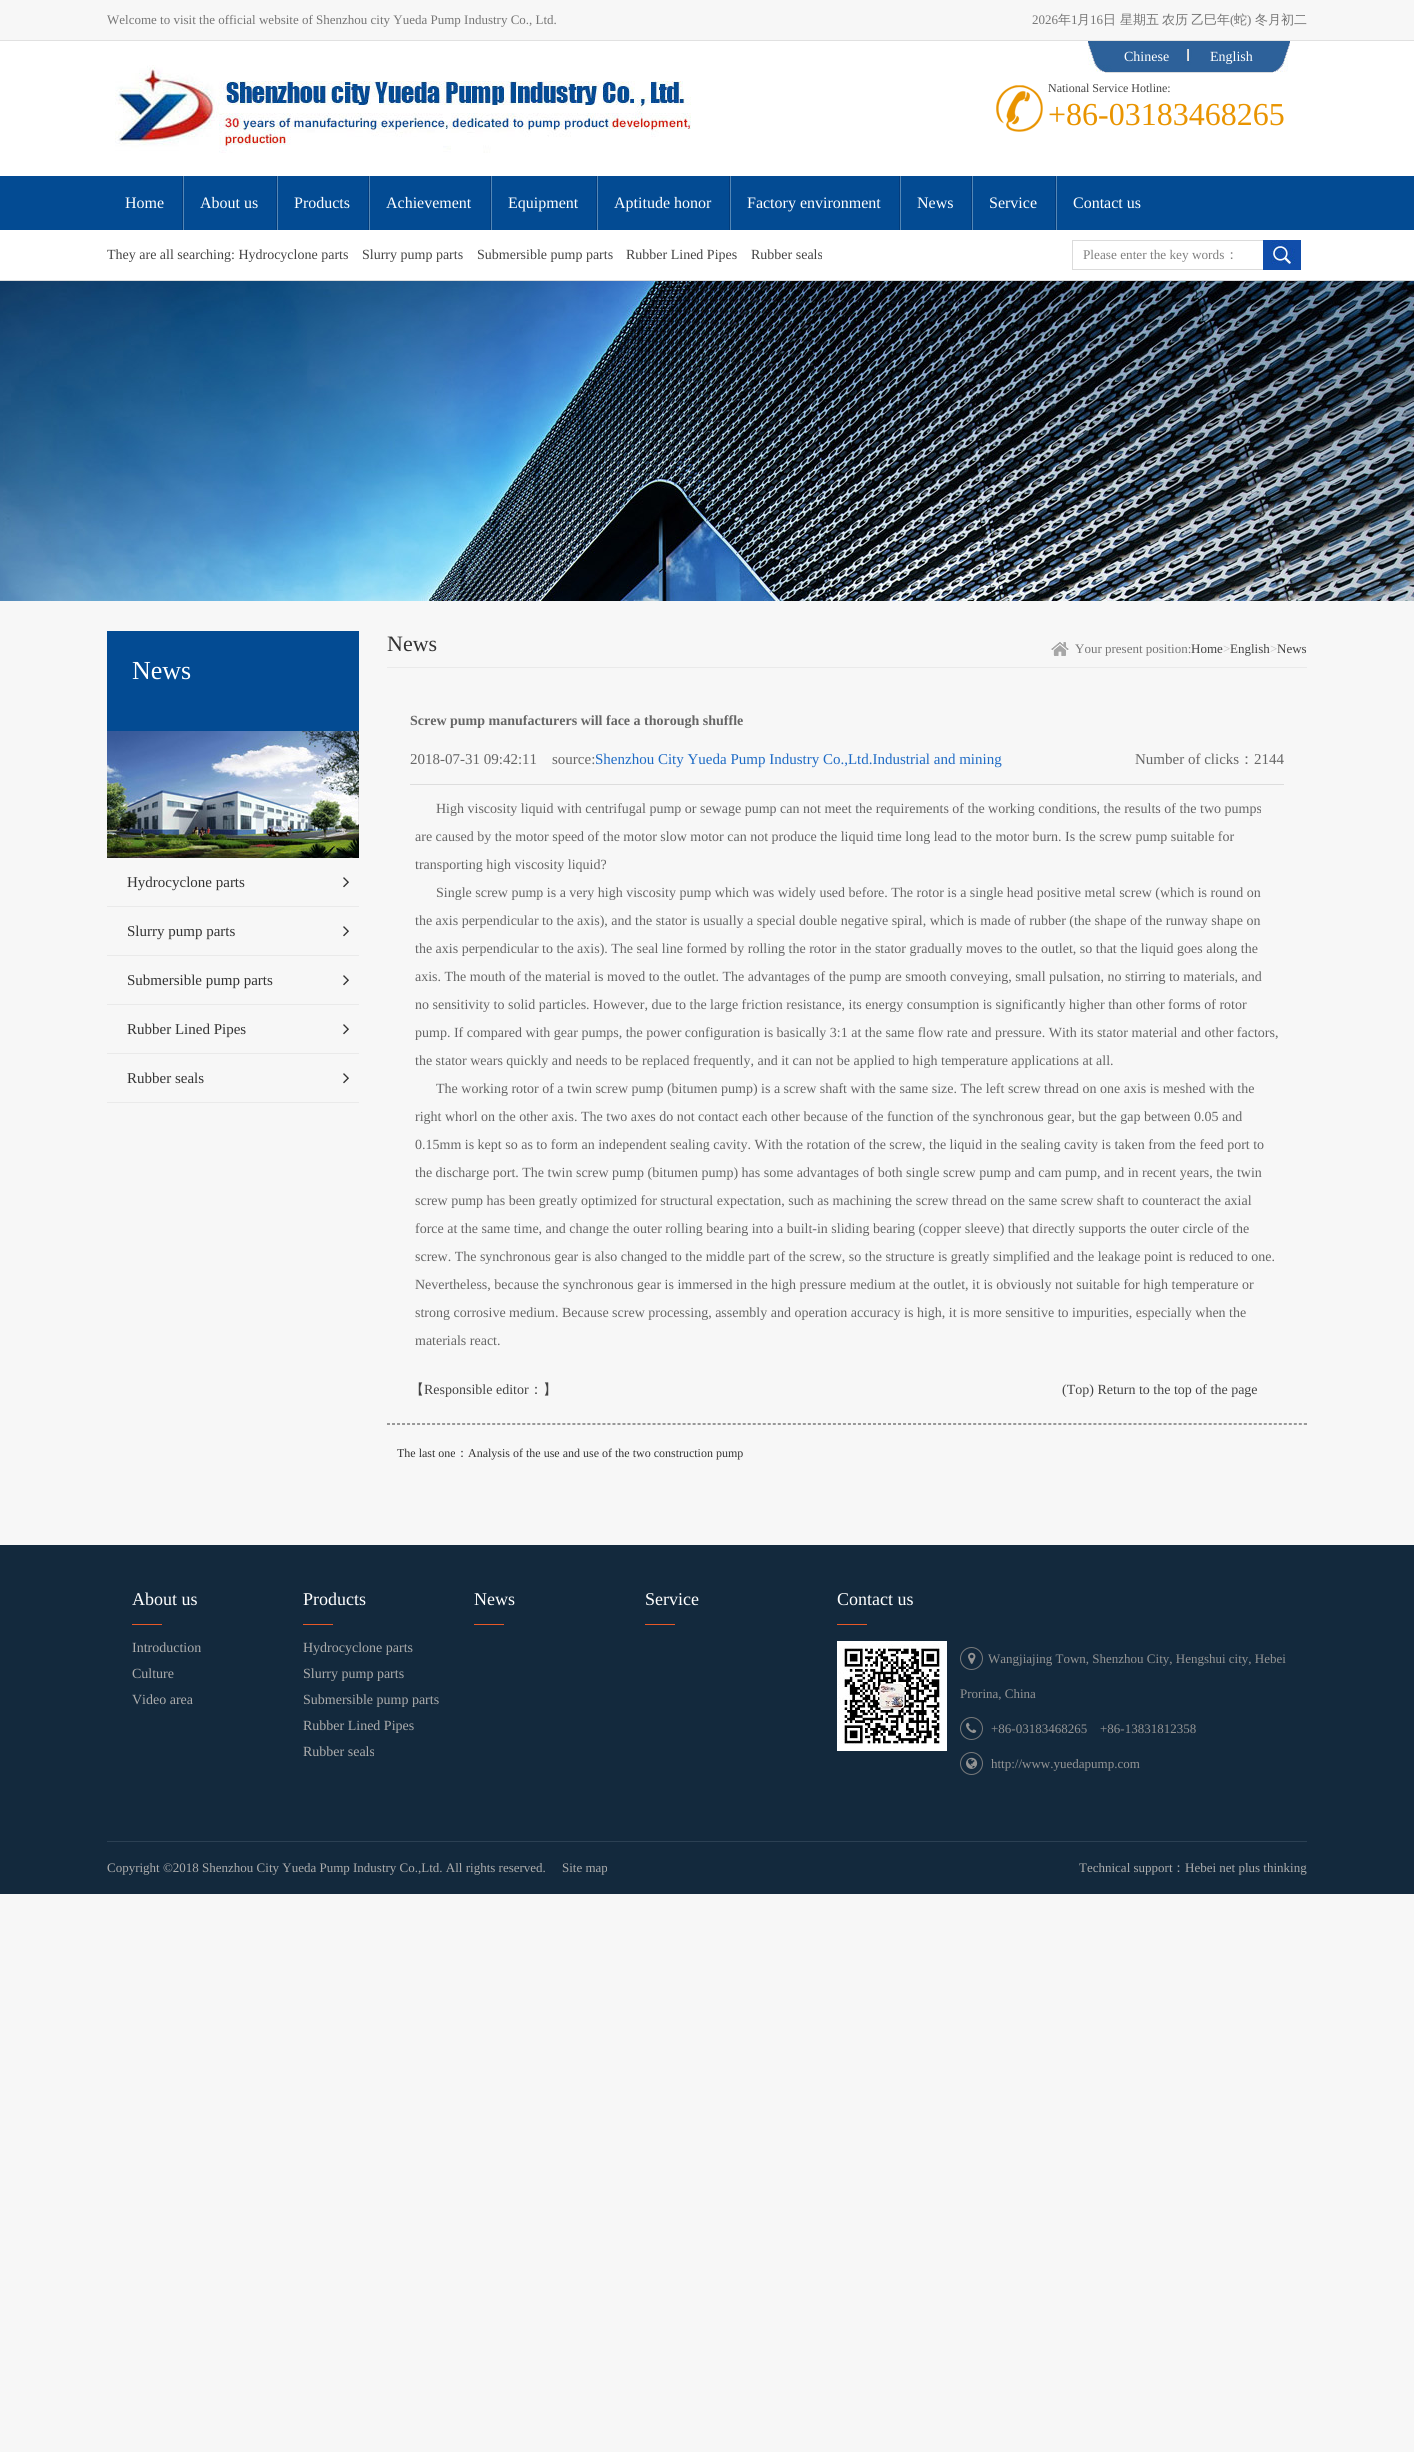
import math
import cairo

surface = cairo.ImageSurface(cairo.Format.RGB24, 1414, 2452)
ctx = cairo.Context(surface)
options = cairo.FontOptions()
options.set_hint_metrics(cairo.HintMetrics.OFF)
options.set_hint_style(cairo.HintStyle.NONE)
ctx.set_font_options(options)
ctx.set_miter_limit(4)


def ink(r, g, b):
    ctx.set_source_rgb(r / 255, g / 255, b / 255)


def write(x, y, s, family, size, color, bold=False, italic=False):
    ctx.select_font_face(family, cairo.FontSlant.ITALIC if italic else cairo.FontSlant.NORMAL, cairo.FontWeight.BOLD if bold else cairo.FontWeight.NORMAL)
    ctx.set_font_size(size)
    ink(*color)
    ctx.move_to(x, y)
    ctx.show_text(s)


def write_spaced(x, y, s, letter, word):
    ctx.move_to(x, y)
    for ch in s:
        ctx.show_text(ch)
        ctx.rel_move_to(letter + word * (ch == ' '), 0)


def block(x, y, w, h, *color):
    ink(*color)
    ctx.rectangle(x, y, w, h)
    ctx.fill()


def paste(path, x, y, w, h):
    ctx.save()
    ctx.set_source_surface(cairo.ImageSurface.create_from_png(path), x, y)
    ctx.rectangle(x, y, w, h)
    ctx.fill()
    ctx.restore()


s1 = dict(family="Liberation Serif", size=13, color=(118, 118, 118))
s2 = dict(family="WenQuanYi Zen Hei Medium", size=13, color=(118, 118, 118))
s3 = dict(family="Liberation Serif", size=14, color=(255, 255, 255))
s4 = dict(family="Liberation Serif", size=12, color=(68, 68, 68))
s5 = dict(family="Liberation Serif", size=32, color=(233, 148, 0))
s6 = dict(family="Liberation Serif", size=16, color=(255, 255, 255))
s7 = dict(family="Liberation Serif", size=14, color=(68, 68, 68))
s8 = dict(family="Liberation Serif", size=13.25, color=(127, 127, 127))
s9 = dict(family="WenQuanYi Zen Hei Medium", size=13.25, color=(127, 127, 127))
s10 = dict(family="Liberation Serif", size=26, color=(255, 255, 255))
s11 = dict(family="Liberation Serif", size=15, color=(51, 51, 51))
s12 = dict(family="Liberation Serif", size=22, color=(51, 51, 51))
s13 = dict(family="Liberation Serif", size=13, color=(68, 68, 68))
s14 = dict(family="Liberation Serif", size=13, color=(189, 189, 189))
s15 = dict(family="Liberation Serif", size=14, color=(102, 102, 102), bold=True)
s16 = dict(family="Liberation Serif", size=15, color=(102, 102, 102))
s17 = dict(family="Liberation Serif", size=15, color=(30, 107, 197))
s18 = dict(family="WenQuanYi Zen Hei Medium", size=15, color=(102, 102, 102))
s19 = dict(family="Liberation Serif", size=14, color=(102, 102, 102))
s20 = dict(family="WenQuanYi Zen Hei Medium", size=14, color=(68, 68, 68))
s21 = dict(family="Liberation Serif", size=12, color=(51, 51, 51))
s22 = dict(family="WenQuanYi Zen Hei Medium", size=12, color=(51, 51, 51))
s23 = dict(family="Liberation Serif", size=18, color=(255, 255, 255))
s24 = dict(family="Liberation Serif", size=14, color=(172, 172, 172))
s25 = dict(family="Liberation Serif", size=13, color=(148, 148, 148))
s26 = dict(family="Liberation Serif", size=13, color=(172, 172, 172))
s27 = dict(family="WenQuanYi Zen Hei Medium", size=13, color=(172, 172, 172))

ink(247, 247, 247)
ctx.paint()
block(0, 40, 1414, 1, 225, 225, 225)
write(107, 24, "Welcome to visit the official website of Shenzhou city Yueda Pump Industry Co., Ltd.", **s1)
write(1032, 24, "2026", **s1)
write(1058, 24, "年", **s2)
write(1071, 24, "1", **s1)
write(1077, 24, "月", **s2)
write(1090, 24, "16", **s1)
write(1103, 24, "日", **s2)
write_spaced(1120, 24, "星期五 农历", 0, -1)
write(1191, 24, "乙巳年", **s2)
write(1230, 24, "(", **s1)
write(1234, 24, "蛇", **s2)
write(1247, 24, ")", **s1)
write(1255, 24, "冬月初二", **s2)
block(0, 41, 1414, 135, 255, 255, 255)
paste("pic1.png", 1088, 41, 202, 31)
block(1105, 72, 168, 1, 221, 221, 221)
write(1124, 61, "Chinese", **s3)
write(1210, 61, "English", **s3)
paste("pic2.png", 115, 65, 576, 88)
paste("pic3.png", 996, 85, 47, 47)
write(1048, 92, "National Service Hotline:", **s4)
write(1048, 125, "+86-03183468265", **s5)
block(0, 176, 1414, 54, 3, 75, 147)
write(125, 208, "Home", **s6)
paste("pic4.png", 182, 176, 2, 54)
write(200, 208, "About us", **s6)
paste("pic4.png", 276, 176, 2, 54)
write(294, 208, "Products", **s6)
paste("pic4.png", 368, 176, 2, 54)
write(386, 208, "Achievement", **s6)
paste("pic4.png", 490, 176, 2, 54)
write(508, 208, "Equipment", **s6)
paste("pic4.png", 596, 176, 2, 54)
write(614, 208, "Aptitude honor", **s6)
paste("pic4.png", 729, 176, 2, 54)
write(747, 208, "Factory environment", **s6)
paste("pic4.png", 899, 176, 2, 54)
write(917, 208, "News", **s6)
paste("pic4.png", 971, 176, 2, 54)
write(989, 208, "Service", **s6)
paste("pic4.png", 1055, 176, 2, 54)
write(1073, 208, "Contact us", **s6)
block(0, 230, 1414, 50, 255, 255, 255)
block(0, 280, 1414, 1, 220, 220, 220)
write(107, 259, "They are all searching: Hydrocyclone parts", **s7)
write(362, 259, "Slurry pump parts", **s7)
write(477, 259, "Submersible pump parts", **s7)
write(626, 259, "Rubber Lined Pipes", **s7)
write(751, 259, "Rubber seals", **s7)
block(1072, 240, 191, 1, 219, 219, 219)
block(1072, 269, 191, 1, 219, 219, 219)
block(1072, 240, 1, 30, 219, 219, 219)
write(1083, 259, "Please enter the key words", **s8)
write(1225, 259, "：", **s9)
paste("pic5.png", 1263, 240, 38, 30)
paste("pic6.png", 0, 281, 1414, 320)
block(107, 631, 252, 100, 3, 75, 147)
write(132, 679, "News", **s10)
paste("pic7.png", 107, 731, 252, 127)
block(107, 906, 252, 1, 234, 234, 234)
write(127, 887, "Hydrocyclone parts", **s11)
paste("pic8.png", 343, 877, 6, 11)
block(107, 955, 252, 1, 234, 234, 234)
write(127, 936, "Slurry pump parts", **s11)
paste("pic8.png", 343, 926, 6, 11)
block(107, 1004, 252, 1, 234, 234, 234)
write(127, 985, "Submersible pump parts", **s11)
paste("pic8.png", 343, 975, 6, 11)
block(107, 1053, 252, 1, 234, 234, 234)
write(127, 1034, "Rubber Lined Pipes", **s11)
paste("pic8.png", 343, 1024, 6, 11)
block(107, 1102, 252, 1, 234, 234, 234)
write(127, 1083, "Rubber seals", **s11)
paste("pic8.png", 343, 1073, 6, 11)
block(387, 667, 920, 1, 234, 234, 234)
write(387, 651, "News", **s12)
paste("pic9.png", 1051, 642, 18, 14)
write(1075, 653, "Your present position:", **s1)
write(1191, 653, "Home", **s13)
write(1223, 653, ">", **s14)
write(1230, 653, "English", **s13)
write(1270, 653, ">", **s14)
write(1277, 653, "News", **s13)
write(410, 725, "Screw pump manufacturers will face a thorough shuffle", **s15)
block(410, 784, 874, 1, 221, 221, 221)
write(410, 764, "2018-07-31 09:42:11", **s16)
write(552, 764, "source:", **s16)
write(595, 764, "Shenzhou City Yueda Pump Industry Co.,Ltd.Industrial and mining", **s17)
write(1135, 764, "Number of clicks", **s16)
write(1239, 764, "：", **s18)
write(1254, 764, "2144", **s16)
write(436, 813, "High viscosity liquid with centrifugal pump or sewage pump can not meet the requirements of the working conditions, the results of the two pumps", **s19)
write(415, 841, "are caused by the motor speed of the motor slow motor can not produce the liquid time long lead to the motor burn. Is the screw pump suitable for", **s19)
write(415, 869, "transporting high viscosity liquid?", **s19)
write(436, 897, "Single screw pump is a very high viscosity pump which was widely used before. The rotor is a single head positive metal screw (which is round on", **s19)
write(415, 925, "the axis perpendicular to the axis), and the stator is usually a special double negative spiral, which is made of rubber (the shape of the runway shape on", **s19)
write(415, 953, "the axis perpendicular to the axis). The seal line formed by rolling the rotor in the stator gradually moves to the outlet, so that the liquid goes along the", **s19)
write(415, 981, "axis. The mouth of the material is moved to the outlet. The advantages of the pump are smooth conveying, small pulsation, no stirring to materials, and", **s19)
write(415, 1009, "no sensitivity to solid particles. However, due to the large friction resistance, its energy consumption is significantly higher than other forms of rotor", **s19)
write(415, 1037, "pump. If compared with gear pumps, the power configuration is basically 3:1 at the same flow rate and pressure. With its stator material and other factors,", **s19)
write(415, 1065, "the stator wears quickly and needs to be replaced frequently, and it can not be applied to high temperature applications at all.", **s19)
write(436, 1093, "The working rotor of a twin screw pump (bitumen pump) is a screw shaft with the same size. The left screw thread on one axis is meshed with the", **s19)
write(415, 1121, "right whorl on the other axis. The two axes do not contact each other because of the function of the synchronous gear, but the gap between 0.05 and", **s19)
write(415, 1149, "0.15mm is kept so as to form an independent sealing cavity. With the rotation of the screw, the liquid in the sealing cavity is taken from the feed port to", **s19)
write(415, 1177, "the discharge port. The twin screw pump (bitumen pump) has some advantages of both single screw pump and cam pump, and in recent years, the twin", **s19)
write(415, 1205, "screw pump has been greatly optimized for structural expectation, such as machining the screw thread on the same screw shaft to counteract the axial", **s19)
write(415, 1233, "force at the same time, and change the outer rolling bearing into a built-in sliding bearing (copper sleeve) that directly supports the outer circle of the", **s19)
write(415, 1261, "screw. The synchronous gear is also changed to the middle part of the screw, so the structure is greatly simplified and the leakage point is reduced to one.", **s19)
write(415, 1289, "Nevertheless, because the synchronous gear is immersed in the high pressure medium at the outlet, it is obviously not suitable for high temperature or", **s19)
write(415, 1317, "strong corrosive medium. Because screw processing, assembly and operation accuracy is high, it is more sensitive to impurities, especially when the", **s19)
write(415, 1345, "materials react.", **s19)
write(410, 1394, "【", **s20)
write(424, 1394, "Responsible editor", **s7)
write(529, 1394, "：】", **s20)
write(1062, 1394, "(Top) Return to the top of the page", **s7)
ctx.new_path()
ctx.move_to(387, 1423.5)
ctx.line_to(1307, 1423.5)
ink(153, 153, 153)
ctx.set_line_width(1)
ctx.set_dash([3, 2.01])
ctx.stroke()
block(1306, 1423, 1, 2, 153, 153, 153)
ctx.new_path()
ctx.move_to(387, 1424.5)
ctx.line_to(1307, 1424.5)
ctx.stroke()
write(397, 1457, "The last one", **s21)
write(456, 1457, "：", **s22)
write(468, 1457, "Analysis of the use and use of the two construction pump", **s21)
block(0, 1545, 1414, 349, 19, 41, 61)
block(132, 1624, 30, 1, 232, 88, 38)
write(132, 1605, "About us", **s23)
write(132, 1652, "Introduction", **s24)
write(132, 1678, "Culture", **s24)
write(132, 1704, "Video area", **s24)
block(303, 1624, 30, 1, 232, 88, 38)
write(303, 1605, "Products", **s23)
write(303, 1652, "Hydrocyclone parts", **s24)
write(303, 1678, "Slurry pump parts", **s24)
write(303, 1704, "Submersible pump parts", **s24)
write(303, 1730, "Rubber Lined Pipes", **s24)
write(303, 1756, "Rubber seals", **s24)
block(474, 1624, 30, 1, 232, 88, 38)
write(474, 1605, "News", **s23)
block(645, 1624, 30, 1, 232, 88, 38)
write(645, 1605, "Service", **s23)
block(837, 1624, 30, 1, 232, 88, 38)
write(837, 1605, "Contact us", **s23)
paste("pic10.png", 837, 1641, 110, 110)
ctx.arc(971.5, 1658.5, 11, 0, 2 * math.pi)
ink(121, 122, 123)
ctx.set_dash([])
ctx.stroke()
paste("pic11.png", 968, 1652, 8, 12)
write(988, 1663, "Wangjiajing Town, Shenzhou City, Hengshui city, Hebei", **s25)
write(960, 1698, "Prorina, China", **s25)
ctx.new_path()
ctx.arc(971.5, 1728.5, 11, 0, 2 * math.pi)
ink(121, 122, 123)
ctx.stroke()
paste("pic12.png", 966, 1722, 11, 11)
write(991, 1733, "+86-03183468265", **s25)
write(1100, 1733, "+86-13831812358", **s25)
ctx.new_path()
ctx.arc(971.5, 1763.5, 11, 0, 2 * math.pi)
ink(121, 122, 123)
ctx.stroke()
paste("pic13.png", 966, 1757, 12, 12)
write(991, 1768, "http://www.yuedapump.com", **s25)
block(107, 1841, 1200, 1, 43, 64, 83)
write(107, 1872, "Copyright ©2018 Shenzhou City Yueda Pump Industry Co.,Ltd. All rights reserved.", **s26)
write(562, 1872, "Site map", **s26)
write(1079, 1872, "Technical support", **s26)
write(1172, 1872, "：", **s27)
write(1185, 1872, "Hebei net plus thinking", **s26)
surface.write_to_png("screenshot.png")
